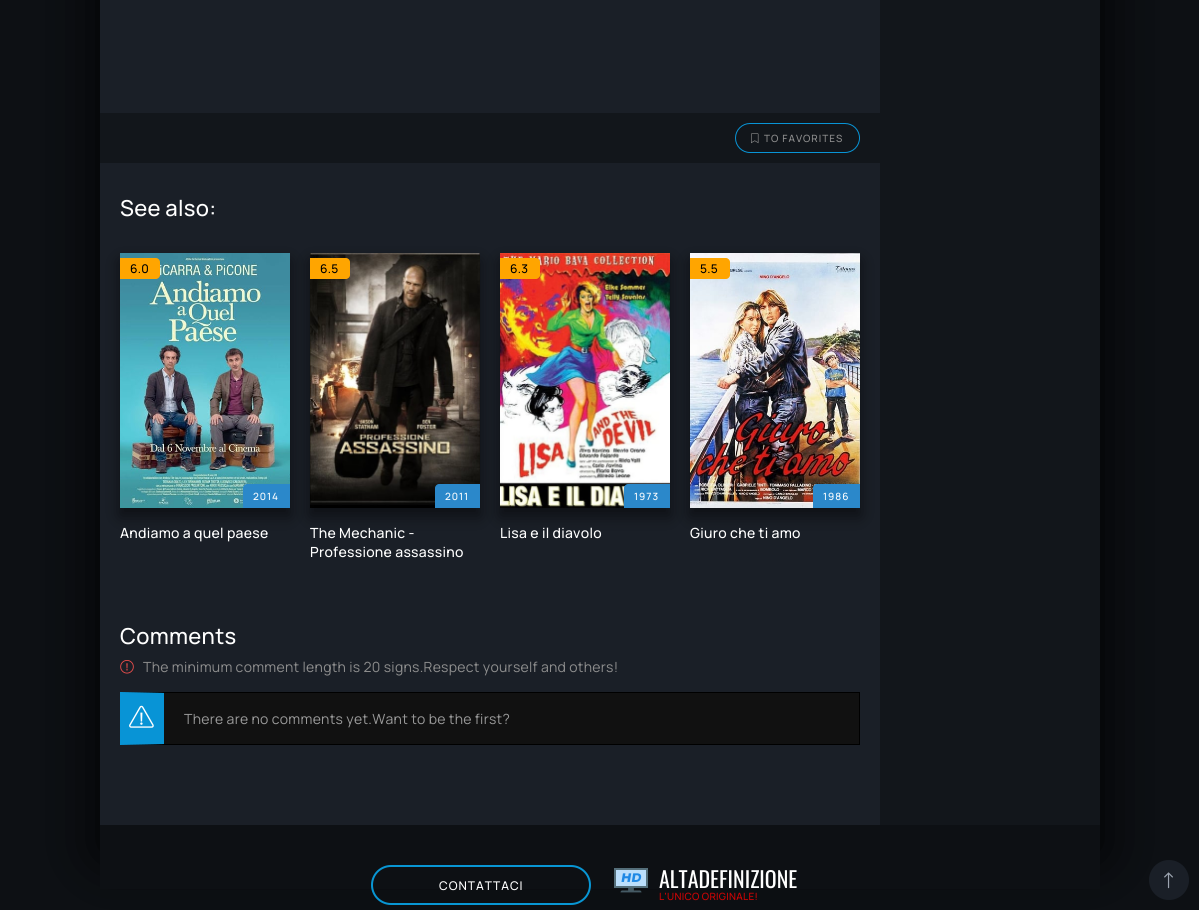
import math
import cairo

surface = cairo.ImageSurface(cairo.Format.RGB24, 1199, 910)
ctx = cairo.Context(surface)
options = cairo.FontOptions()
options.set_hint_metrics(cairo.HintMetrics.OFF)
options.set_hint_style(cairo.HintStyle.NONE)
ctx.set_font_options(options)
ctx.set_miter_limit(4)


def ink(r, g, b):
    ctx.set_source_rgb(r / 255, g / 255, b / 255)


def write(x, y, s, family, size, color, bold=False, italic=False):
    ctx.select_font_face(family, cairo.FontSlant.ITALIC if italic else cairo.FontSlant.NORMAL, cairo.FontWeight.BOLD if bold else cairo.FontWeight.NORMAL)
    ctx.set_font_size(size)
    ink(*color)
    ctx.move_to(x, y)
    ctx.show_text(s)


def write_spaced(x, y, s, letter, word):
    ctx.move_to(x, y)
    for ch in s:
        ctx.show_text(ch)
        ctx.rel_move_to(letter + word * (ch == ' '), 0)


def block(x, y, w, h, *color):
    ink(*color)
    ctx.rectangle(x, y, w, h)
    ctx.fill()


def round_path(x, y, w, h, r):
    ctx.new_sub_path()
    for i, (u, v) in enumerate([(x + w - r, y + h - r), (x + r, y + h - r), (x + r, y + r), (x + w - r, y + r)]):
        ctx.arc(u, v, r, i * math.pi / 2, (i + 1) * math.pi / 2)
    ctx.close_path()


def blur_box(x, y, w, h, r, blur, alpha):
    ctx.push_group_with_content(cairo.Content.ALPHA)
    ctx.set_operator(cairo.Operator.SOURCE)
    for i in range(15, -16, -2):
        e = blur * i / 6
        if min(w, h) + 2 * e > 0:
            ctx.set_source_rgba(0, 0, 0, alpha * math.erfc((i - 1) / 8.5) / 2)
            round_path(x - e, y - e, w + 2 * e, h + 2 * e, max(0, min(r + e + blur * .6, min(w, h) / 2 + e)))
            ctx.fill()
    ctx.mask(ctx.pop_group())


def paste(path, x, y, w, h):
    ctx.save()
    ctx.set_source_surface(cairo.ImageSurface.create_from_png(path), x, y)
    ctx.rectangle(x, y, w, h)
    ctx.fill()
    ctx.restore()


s1 = dict(family="Oswald", size=22, color=(255, 255, 255))

ink(13, 16, 20)
ctx.paint()
ink(0, 0, 0)
blur_box(100, -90, 1000, 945, 0, 30, 1)
block(100, 0, 780, 825, 26, 31, 39)
block(100, 113, 780, 50, 18, 22, 27)
round_path(735.5, 123.5, 124, 29, 14.5)
ink(8, 148, 214)
ctx.set_line_width(1)
ctx.stroke()
paste("pic1.png", 751, 133, 8, 11)
ctx.select_font_face("Manrope ExtraLight")
ctx.set_font_size(10)
ink(141, 141, 141)
write_spaced(764, 142, "TO FAVORITES", 1, 0)
ctx.set_font_size(22)
ink(255, 255, 255)
write_spaced(120, 216, "See also:", 0.28, 0)
ink(0, 0, 0)
blur_box(120, 261, 170, 255, 0, 8, 0.5)
paste("pic2.png", 120, 253, 170, 255)
ink(255, 165, 0)
ctx.new_path()
ctx.move_to(120, 258)
ctx.line_to(156, 258)
ctx.curve_to(158, 258, 160, 260, 160, 262)
ctx.line_to(160, 275)
ctx.curve_to(160, 277, 158, 279, 156, 279)
ctx.line_to(120, 279)
ctx.close_path()
ctx.fill()
ctx.set_font_size(12)
ink(0, 0, 0)
write_spaced(130, 273, "6.0", 0.28, 0)
ink(0, 0, 0)
blur_box(310, 261, 170, 255, 0, 8, 0.5)
ink(43, 136, 202)
ctx.new_path()
ctx.move_to(247, 484)
ctx.line_to(290, 484)
ctx.line_to(290, 508)
ctx.line_to(243, 508)
ctx.line_to(243, 488)
ctx.curve_to(243, 486, 245, 484, 247, 484)
ctx.close_path()
ctx.fill()
ctx.set_font_size(10)
ink(255, 255, 255)
write_spaced(253, 500, "2014", 1, 0)
ctx.set_font_size(14)
write_spaced(120, 538, "Andiamo a quel paese", 0.28, 0)
paste("pic3.png", 310, 253, 170, 255)
ink(255, 165, 0)
ctx.new_path()
ctx.move_to(310, 258)
ctx.line_to(346, 258)
ctx.curve_to(348, 258, 350, 260, 350, 262)
ctx.line_to(350, 275)
ctx.curve_to(350, 277, 348, 279, 346, 279)
ctx.line_to(310, 279)
ctx.close_path()
ctx.fill()
ctx.set_font_size(12)
ink(0, 0, 0)
write_spaced(320, 273, "6.5", 0.28, 0)
ink(0, 0, 0)
blur_box(500, 261, 170, 255, 0, 8, 0.5)
ink(43, 136, 202)
ctx.new_path()
ctx.move_to(439, 484)
ctx.line_to(480, 484)
ctx.line_to(480, 508)
ctx.line_to(435, 508)
ctx.line_to(435, 488)
ctx.curve_to(435, 486, 437, 484, 439, 484)
ctx.close_path()
ctx.fill()
ctx.set_font_size(10)
ink(255, 255, 255)
write_spaced(445, 500, "2011", 1, 0)
ctx.set_font_size(14)
write_spaced(310, 538, "The Mechanic -", 0.28, 0)
write_spaced(310, 557, "Professione assassino", 0.28, 0)
paste("pic4.png", 500, 253, 170, 255)
ink(255, 165, 0)
ctx.new_path()
ctx.move_to(500, 258)
ctx.line_to(536, 258)
ctx.curve_to(538, 258, 540, 260, 540, 262)
ctx.line_to(540, 275)
ctx.curve_to(540, 277, 538, 279, 536, 279)
ctx.line_to(500, 279)
ctx.close_path()
ctx.fill()
ctx.set_font_size(12)
ink(0, 0, 0)
write_spaced(510, 273, "6.3", 0.28, 0)
block(880, 0, 220, 825, 18, 22, 27)
ink(0, 0, 0)
blur_box(690, 261, 170, 255, 0, 8, 0.5)
ink(43, 136, 202)
ctx.new_path()
ctx.move_to(628, 484)
ctx.line_to(670, 484)
ctx.line_to(670, 508)
ctx.line_to(624, 508)
ctx.line_to(624, 488)
ctx.curve_to(624, 486, 626, 484, 628, 484)
ctx.close_path()
ctx.fill()
ctx.set_font_size(10)
ink(255, 255, 255)
write_spaced(634, 500, "1973", 1, 0)
ctx.set_font_size(14)
write_spaced(500, 538, "Lisa e il diavolo", 0.28, 0)
paste("pic5.png", 690, 253, 170, 255)
ink(255, 165, 0)
ctx.new_path()
ctx.move_to(690, 258)
ctx.line_to(726, 258)
ctx.curve_to(728, 258, 730, 260, 730, 262)
ctx.line_to(730, 275)
ctx.curve_to(730, 277, 728, 279, 726, 279)
ctx.line_to(690, 279)
ctx.close_path()
ctx.fill()
ctx.set_font_size(12)
ink(0, 0, 0)
write_spaced(700, 273, "5.5", 0.28, 0)
ink(43, 136, 202)
ctx.new_path()
ctx.move_to(817, 484)
ctx.line_to(860, 484)
ctx.line_to(860, 508)
ctx.line_to(813, 508)
ctx.line_to(813, 488)
ctx.curve_to(813, 486, 815, 484, 817, 484)
ctx.close_path()
ctx.fill()
ctx.set_font_size(10)
ink(255, 255, 255)
write_spaced(823, 500, "1986", 1, 0)
ctx.set_font_size(14)
write_spaced(690, 538, "Giuro che ti amo", 0.28, 0)
ctx.set_font_size(22)
write_spaced(120, 644, "Comments", 0.28, 0)
paste("pic6.png", 120, 660, 14, 14)
ctx.select_font_face("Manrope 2 ExtraLight")
ctx.set_font_size(14)
ink(141, 141, 141)
write_spaced(143, 672, "The minimum comment length is 20 signs.Respect yourself and others!", 0.28, 0)
block(164, 693, 695, 51, 17, 17, 17)
ink(0, 0, 0)
ctx.new_path()
ctx.move_to(120, 692)
ctx.line_to(860, 692)
ctx.line_to(859, 693)
ctx.line_to(164, 693)
ctx.close_path()
ctx.fill()
block(859, 692, 1, 53, 0, 0, 0)
ctx.new_path()
ctx.move_to(860, 745)
ctx.line_to(120, 745)
ctx.line_to(164, 744)
ctx.line_to(859, 744)
ctx.close_path()
ctx.fill()
ink(8, 148, 214)
ctx.new_path()
ctx.move_to(120, 745)
ctx.line_to(120, 692)
ctx.line_to(164, 693)
ctx.line_to(164, 744)
ctx.close_path()
ctx.fill()
paste("pic7.png", 129, 705, 25, 23)
ink(153, 153, 153)
write_spaced(184, 724, "There are no comments yet.Want to be the first?", 0.28, 0)
block(100, 825, 1000, 64, 13, 16, 20)
round_path(372, 866, 218, 38, 19)
ink(8, 150, 212)
ctx.set_line_width(2)
ctx.stroke()
ctx.select_font_face("Manrope ExtraLight")
ctx.set_font_size(12)
ink(255, 255, 255)
write_spaced(439, 890, "CONTATTACI", 1, 0)
paste("pic8.png", 614, 868, 34, 25)
write(659, 888, "ALTADEFINIZIONE", **s1)
ctx.select_font_face("Manrope ExtraLight")
ctx.set_font_size(10)
ink(207, 3, 4)
write_spaced(659, 900, "L'UNICO ORIGINALE!", 0.28, 0)
ink(26, 31, 39)
ctx.new_path()
ctx.arc(1169, 880, 20, 0, 2 * math.pi)
ctx.fill()
paste("pic9.png", 1164, 872, 9, 17)
surface.write_to_png("screenshot.png")
